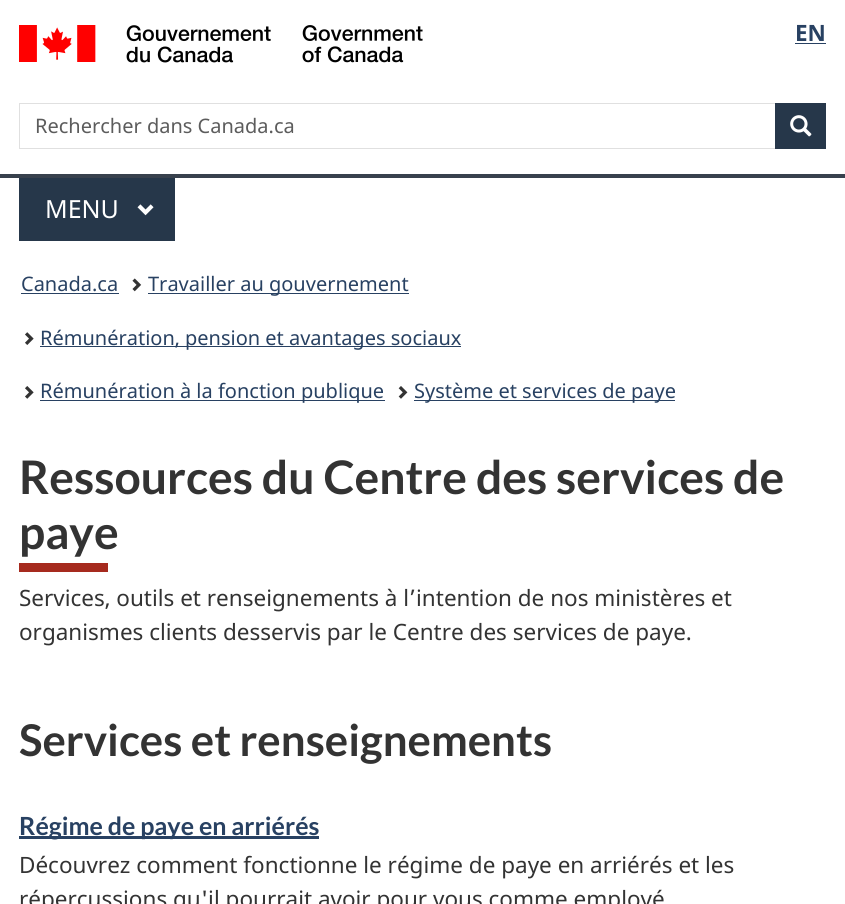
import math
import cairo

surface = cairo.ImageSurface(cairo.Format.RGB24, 845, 904)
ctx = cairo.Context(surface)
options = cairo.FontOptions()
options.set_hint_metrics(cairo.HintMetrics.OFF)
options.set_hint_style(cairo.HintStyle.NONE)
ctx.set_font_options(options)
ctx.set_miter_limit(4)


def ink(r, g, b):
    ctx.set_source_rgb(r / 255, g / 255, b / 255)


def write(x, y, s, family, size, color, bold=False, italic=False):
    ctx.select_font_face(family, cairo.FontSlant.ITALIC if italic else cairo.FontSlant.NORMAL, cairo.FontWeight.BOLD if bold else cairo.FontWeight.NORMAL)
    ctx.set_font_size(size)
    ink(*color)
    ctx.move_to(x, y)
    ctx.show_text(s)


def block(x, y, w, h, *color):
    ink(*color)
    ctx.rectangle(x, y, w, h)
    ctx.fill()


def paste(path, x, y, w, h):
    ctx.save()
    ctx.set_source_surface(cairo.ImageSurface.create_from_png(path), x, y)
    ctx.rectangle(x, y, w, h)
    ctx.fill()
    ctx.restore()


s1 = dict(family="Noto Sans", size=22.5, color=(40, 65, 98), bold=True)
s2 = dict(family="Noto Sans", size=20, color=(92, 92, 92))
s3 = dict(family="Noto Sans", size=25, color=(255, 255, 255))
s4 = dict(family="Noto Sans", size=20, color=(40, 65, 98))
s5 = dict(family="Lato", size=46.25, color=(51, 51, 51), bold=True)
s6 = dict(family="Noto Sans", size=22.5, color=(51, 51, 51))
s7 = dict(family="Lato", size=43.75, color=(51, 51, 51), bold=True)
s8 = dict(family="Lato", size=25, color=(40, 65, 98), bold=True)

ink(255, 255, 255)
ctx.paint()
paste("pic1.png", 19, 25, 404, 38)
write(795, 41, "EN", **s1)
block(795, 43, 31, 1, 40, 65, 98)
ctx.rectangle(19.5, 103.5, 806, 45)
ink(224, 224, 224)
ctx.set_line_width(1)
ctx.stroke()
write(35, 133, "Rechercher dans Canada.ca", **s2)
block(775, 103, 51, 46, 38, 55, 74)
paste("pic2.png", 790, 115, 22, 22)
block(0, 174, 845, 4, 56, 65, 77)
block(19, 178, 156, 63, 38, 55, 74)
write(45, 218, "MENU", **s3)
paste("pic3.png", 137, 204, 17, 12)
write(21, 291, "Canada.ca", **s4)
block(21, 293, 98, 1, 40, 65, 98)
paste("pic4.png", 132, 278, 10, 14)
block(148, 293, 261, 1, 40, 65, 98)
write(148, 291, "Travailler au gouvernement", **s4)
paste("pic5.png", 25, 332, 9, 13)
block(40, 346, 421, 1, 40, 65, 98)
write(40, 345, "Rémunération, pension et avantages sociaux", **s4)
paste("pic6.png", 25, 386, 9, 13)
block(40, 400, 345, 1, 40, 65, 98)
write(40, 398, "Rémunération à la fonction publique", **s4)
paste("pic7.png", 398, 386, 10, 13)
block(414, 400, 261, 1, 40, 65, 98)
write(414, 398, "Système et services de paye", **s4)
block(19, 563, 89, 9, 166, 42, 30)
write(19, 494, "Ressources du Centre des services de", **s5)
write(19, 549, "paye", **s5)
write(19, 606, "Services, outils et renseignements à l’intention de nos ministères et", **s6)
write(19, 640, "organismes clients desservis par le Centre des services de paye.", **s6)
write(19, 756, "Services et renseignements", **s7)
block(19, 836, 300, 3, 40, 65, 98)
write(19, 835, "Régime de paye en arriérés", **s8)
write(19, 873, "Découvrez comment fonctionne le régime de paye en arriérés et les", **s6)
write(19, 907, "répercussions qu'il pourrait avoir pour vous comme employé", **s6)
surface.write_to_png("screenshot.png")
